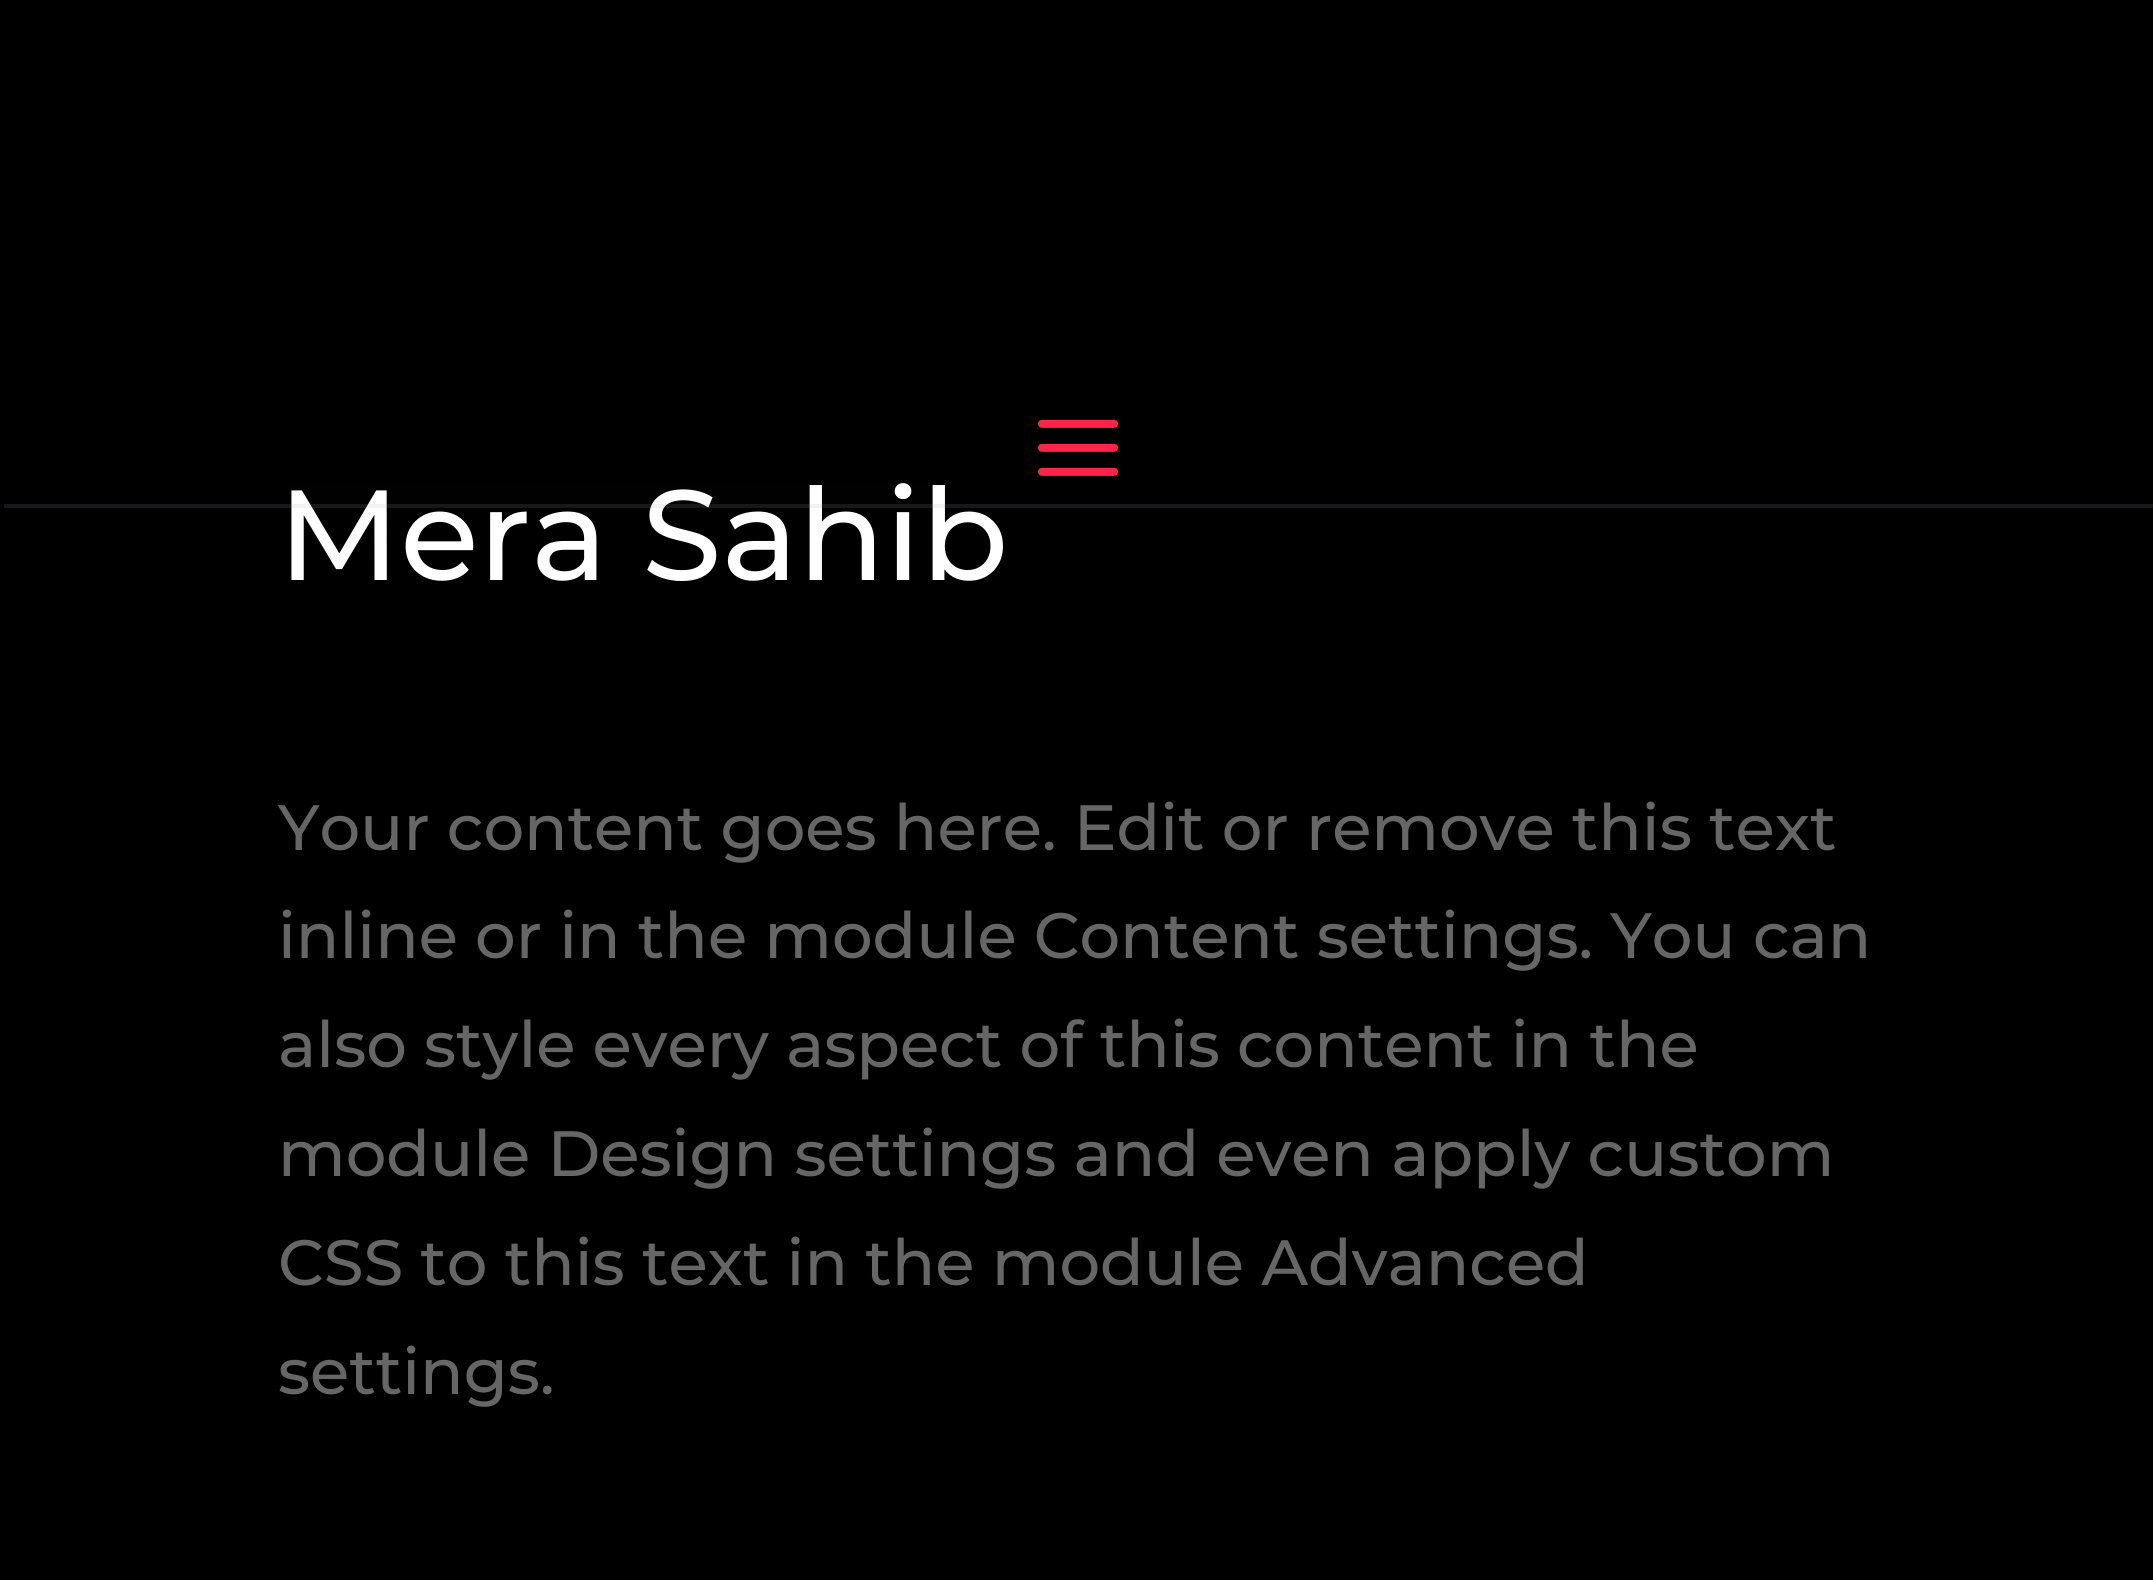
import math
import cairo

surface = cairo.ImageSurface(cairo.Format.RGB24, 2153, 1580)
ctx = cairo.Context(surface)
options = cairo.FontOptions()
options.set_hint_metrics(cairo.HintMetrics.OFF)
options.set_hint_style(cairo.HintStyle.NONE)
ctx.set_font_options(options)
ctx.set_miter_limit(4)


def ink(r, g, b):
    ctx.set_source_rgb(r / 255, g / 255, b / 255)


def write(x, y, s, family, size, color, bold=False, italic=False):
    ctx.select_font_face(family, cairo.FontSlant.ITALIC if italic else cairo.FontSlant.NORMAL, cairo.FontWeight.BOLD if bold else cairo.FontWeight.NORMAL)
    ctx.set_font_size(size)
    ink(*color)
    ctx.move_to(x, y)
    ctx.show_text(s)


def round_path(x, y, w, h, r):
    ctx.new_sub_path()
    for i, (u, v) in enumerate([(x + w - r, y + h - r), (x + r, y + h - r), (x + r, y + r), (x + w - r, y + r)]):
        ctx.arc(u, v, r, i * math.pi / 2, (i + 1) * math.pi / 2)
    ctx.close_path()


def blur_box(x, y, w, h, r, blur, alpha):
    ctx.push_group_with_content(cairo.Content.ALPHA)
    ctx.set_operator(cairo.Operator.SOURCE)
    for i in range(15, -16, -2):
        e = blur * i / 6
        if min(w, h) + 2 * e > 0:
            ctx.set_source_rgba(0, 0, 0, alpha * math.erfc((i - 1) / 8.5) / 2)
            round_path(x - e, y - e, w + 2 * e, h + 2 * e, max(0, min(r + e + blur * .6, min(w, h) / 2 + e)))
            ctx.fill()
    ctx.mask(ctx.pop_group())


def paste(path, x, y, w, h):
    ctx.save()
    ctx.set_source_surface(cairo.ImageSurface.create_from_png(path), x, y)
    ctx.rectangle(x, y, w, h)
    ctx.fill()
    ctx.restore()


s1 = dict(family="Montserrat Thin", size=128, color=(255, 255, 255))
s2 = dict(family="Montserrat Thin", size=64, color=(102, 102, 102))

ink(0, 0, 0)
ctx.paint()
ctx.save()
ctx.set_fill_rule(cairo.FillRule.EVEN_ODD)
ctx.new_path()
ctx.move_to(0, 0)
ctx.line_to(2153, 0)
ctx.line_to(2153, 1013)
ctx.line_to(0, 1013)
ctx.close_path()
ctx.move_to(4, 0)
ctx.line_to(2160, 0)
ctx.line_to(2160, 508)
ctx.line_to(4, 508)
ctx.close_path()
ctx.clip()
blur_box(28, 72, 2108, 460, 0, 160, 0.2)
ctx.restore()
gradient = cairo.LinearGradient(1080, 0, 1080, 504)
gradient.add_color_stop_rgba(0, 0.059, 0.067, 0.09, 0.06)
gradient.add_color_stop_rgba(1, 0.059, 0.067, 0.09, 0.04)
ctx.set_source(gradient)
ctx.rectangle(291, 483, 654, 21)
ctx.fill()
write(278, 580, "Mera Sahib", **s1)
ctx.set_source_rgba(0.608, 0.608, 0.784, 0.15)
ctx.rectangle(4, 504, 2149, 4)
ctx.fill()
paste("pic1.png", 1038, 419, 80, 57)
write(278, 850, "Your content goes here. Edit or remove this text", **s2)
write(278, 958, "inline or in the module Content settings. You can", **s2)
write(278, 1067, "also style every aspect of this content in the", **s2)
write(278, 1176, "module Design settings and even apply custom", **s2)
write(278, 1285, "CSS to this text in the module Advanced", **s2)
write(278, 1394, "settings.", **s2)
surface.write_to_png("screenshot.png")
